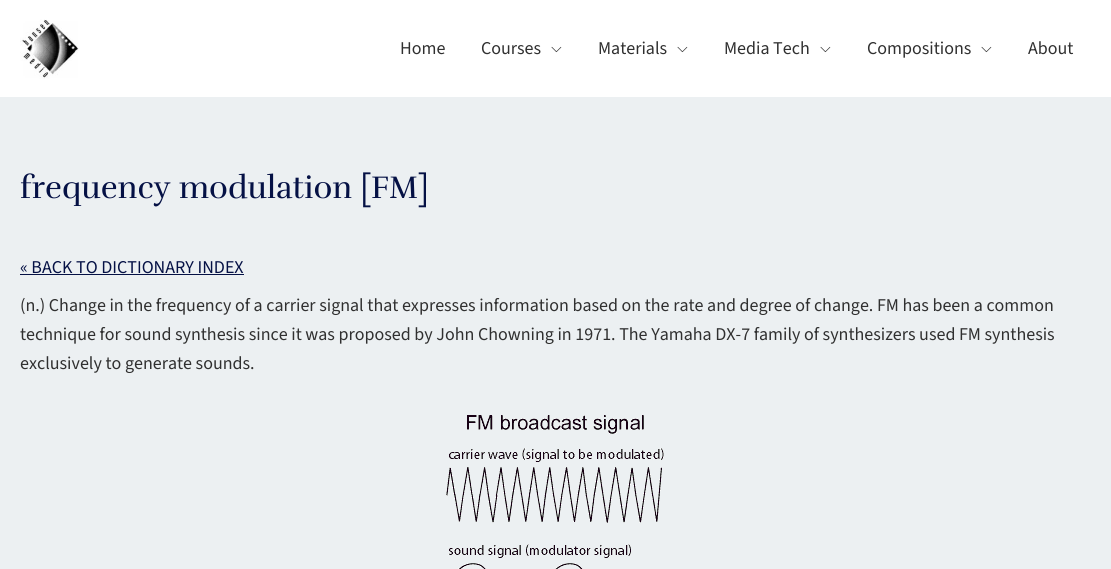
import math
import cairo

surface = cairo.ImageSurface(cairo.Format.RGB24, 1111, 569)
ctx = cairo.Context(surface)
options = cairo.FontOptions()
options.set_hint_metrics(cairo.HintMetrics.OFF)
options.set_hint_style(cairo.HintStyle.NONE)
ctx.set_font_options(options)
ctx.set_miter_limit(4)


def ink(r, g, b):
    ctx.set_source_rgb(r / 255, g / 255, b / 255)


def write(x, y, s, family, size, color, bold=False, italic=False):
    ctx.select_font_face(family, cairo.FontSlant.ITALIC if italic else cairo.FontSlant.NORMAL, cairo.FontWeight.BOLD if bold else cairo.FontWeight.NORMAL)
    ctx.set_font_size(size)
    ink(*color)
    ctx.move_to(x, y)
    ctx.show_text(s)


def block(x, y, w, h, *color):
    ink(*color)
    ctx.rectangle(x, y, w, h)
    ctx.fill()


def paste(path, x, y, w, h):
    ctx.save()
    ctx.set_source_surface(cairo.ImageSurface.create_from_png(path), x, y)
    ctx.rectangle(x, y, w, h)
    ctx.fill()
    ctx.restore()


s1 = dict(family="Source Sans 3 ExtraLight", size=18, color=(48, 48, 48))
s2 = dict(family="Rufina", size=32, color=(5, 17, 69))
s3 = dict(family="Source Sans 3 ExtraLight", size=18, color=(5, 17, 69))

ink(236, 240, 242)
ctx.paint()
block(0, 0, 1111, 97, 255, 255, 255)
paste("pic1.png", 20, 19, 59, 60)
write(400, 54, "Home", **s1)
write(481, 54, "Courses", **s1)
paste("pic2.png", 551, 46, 11, 7)
write(598, 54, "Materials", **s1)
paste("pic2.png", 677, 46, 11, 7)
write(724, 54, "Media Tech", **s1)
paste("pic2.png", 820, 46, 11, 7)
write(867, 54, "Compositions", **s1)
paste("pic2.png", 981, 46, 11, 7)
write(1028, 54, "About", **s1)
write(20, 198, "frequency modulation [FM]", **s2)
write(20, 273, "« BACK TO DICTIONARY INDEX", **s3)
block(20, 274, 224, 1, 5, 17, 69)
write(20, 311, "(n.) Change in the frequency of a carrier signal that expresses information based on the rate and degree of change. FM has been a common", **s1)
write(20, 340, "technique for sound synthesis since it was proposed by John Chowning in 1971. The Yamaha DX-7 family of synthesizers used FM synthesis", **s1)
write(20, 369, "exclusively to generate sounds.", **s1)
paste("pic3.png", 446, 415, 218, 154)
surface.write_to_png("screenshot.png")
